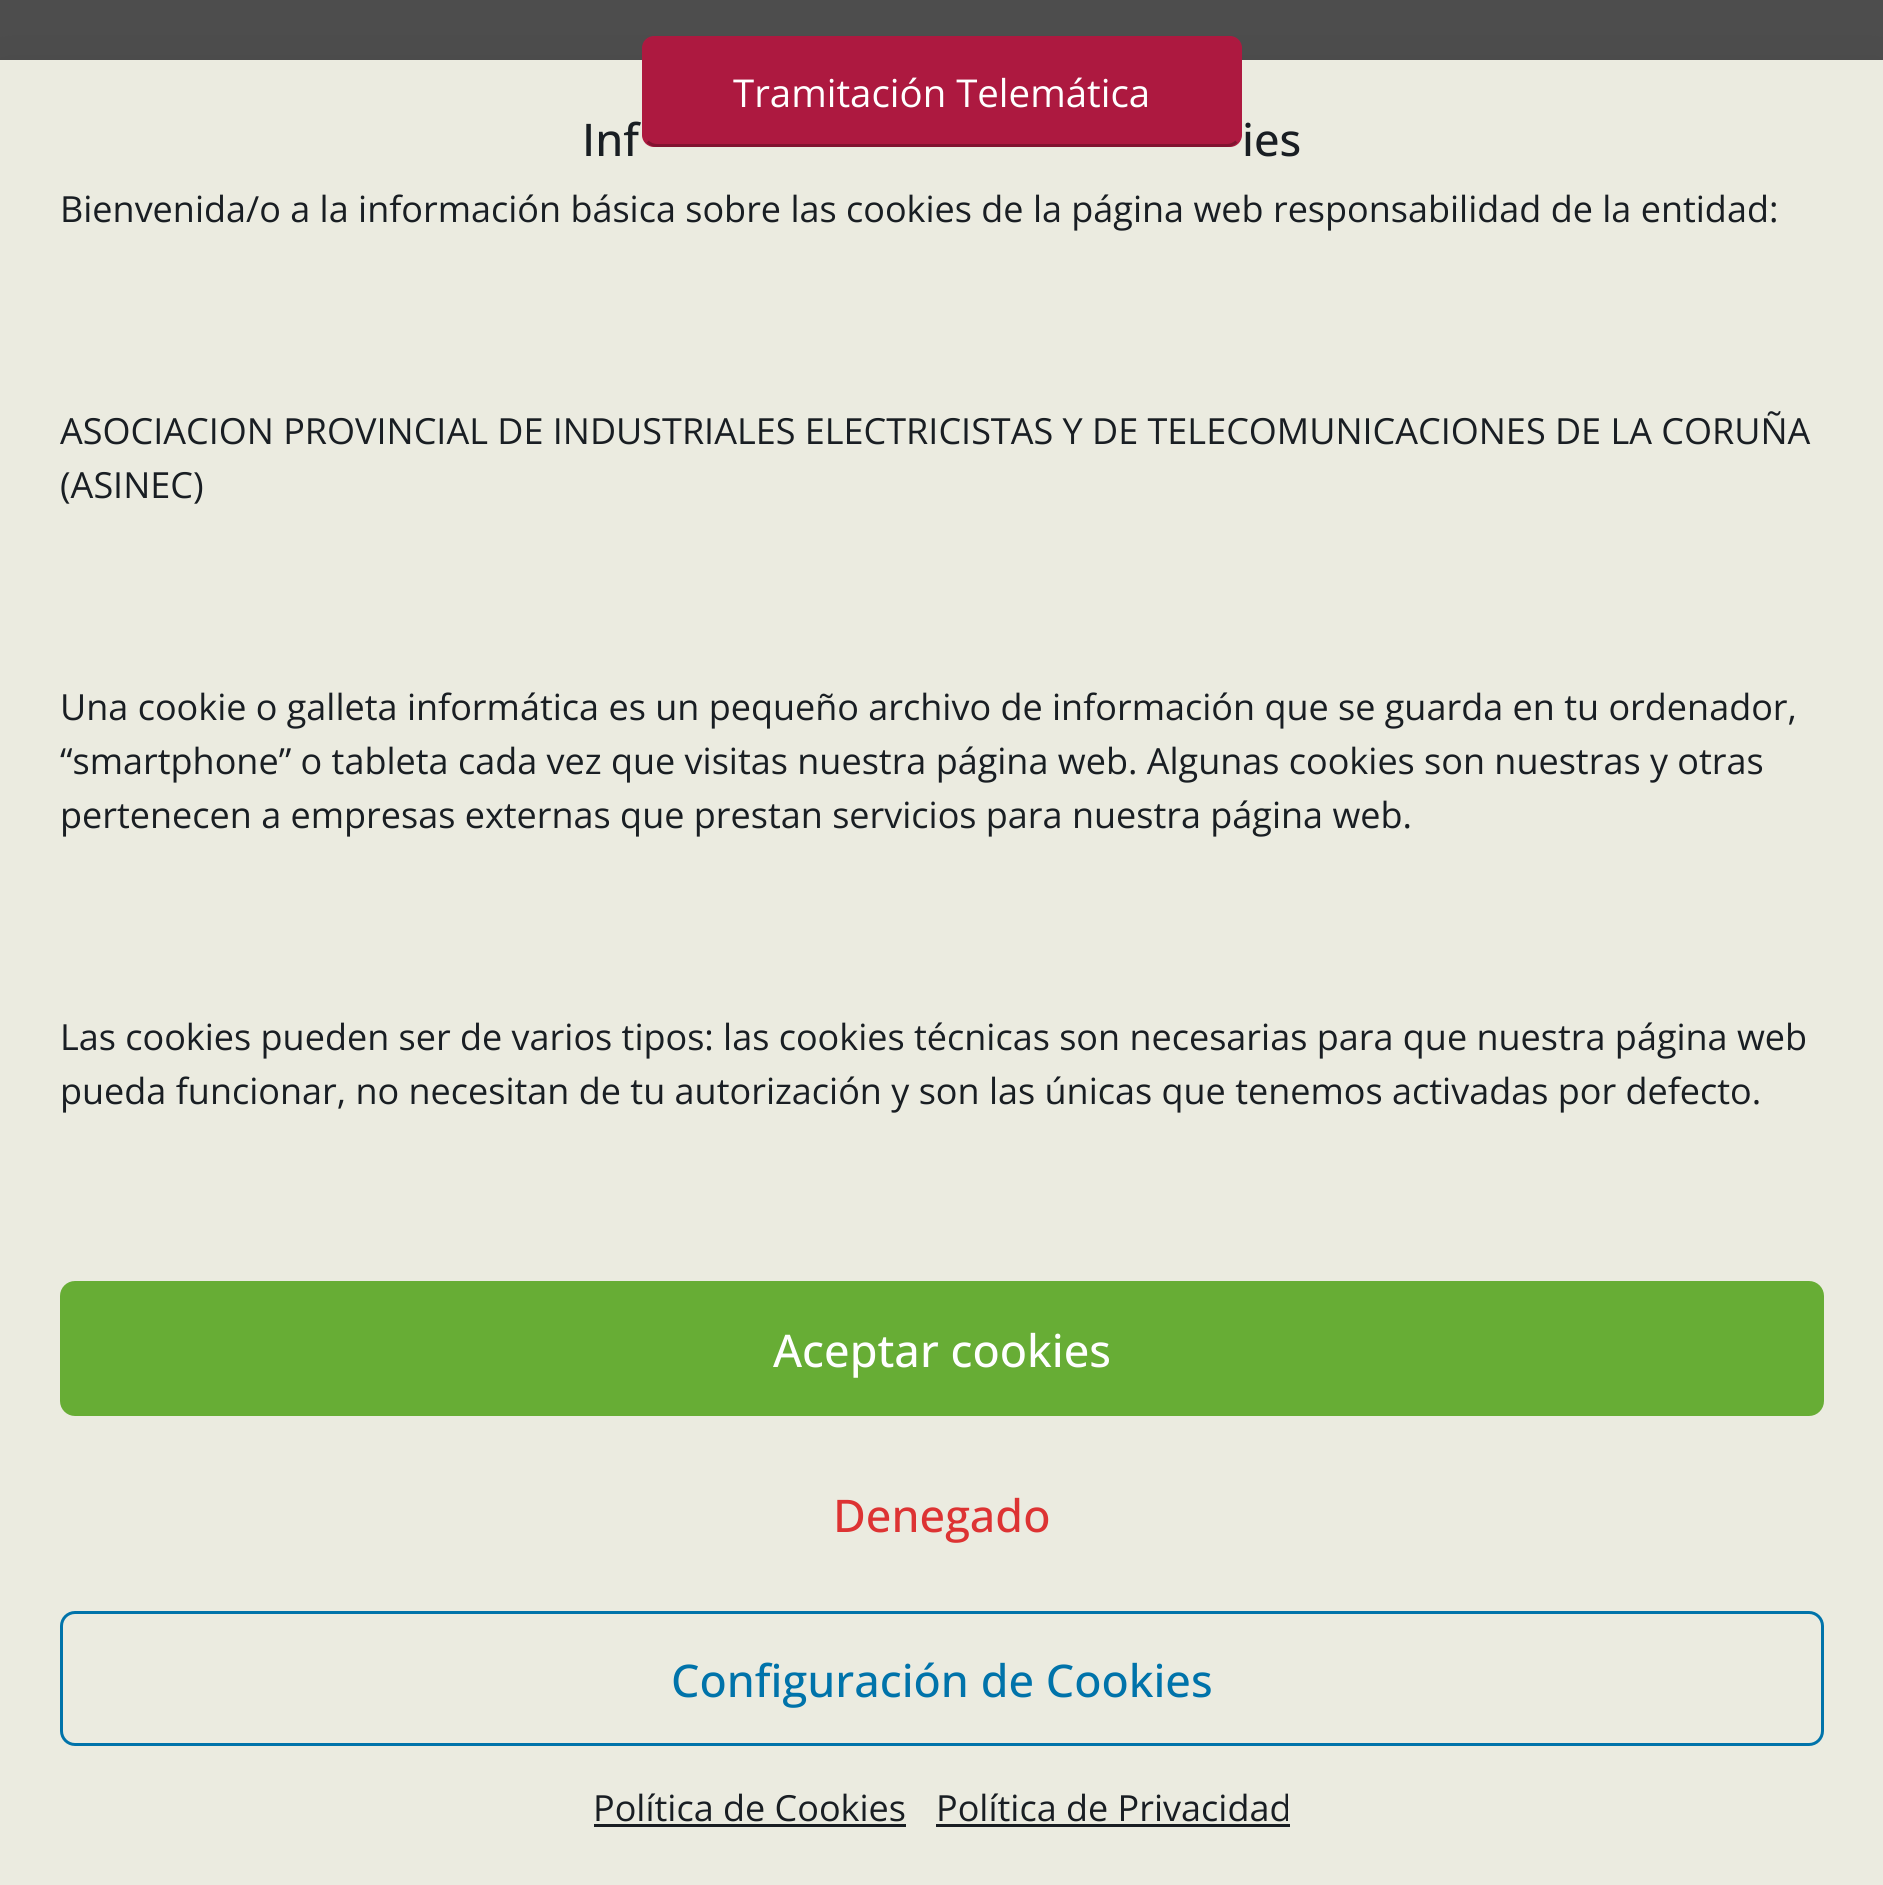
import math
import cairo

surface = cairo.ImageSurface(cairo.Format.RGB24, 1883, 1885)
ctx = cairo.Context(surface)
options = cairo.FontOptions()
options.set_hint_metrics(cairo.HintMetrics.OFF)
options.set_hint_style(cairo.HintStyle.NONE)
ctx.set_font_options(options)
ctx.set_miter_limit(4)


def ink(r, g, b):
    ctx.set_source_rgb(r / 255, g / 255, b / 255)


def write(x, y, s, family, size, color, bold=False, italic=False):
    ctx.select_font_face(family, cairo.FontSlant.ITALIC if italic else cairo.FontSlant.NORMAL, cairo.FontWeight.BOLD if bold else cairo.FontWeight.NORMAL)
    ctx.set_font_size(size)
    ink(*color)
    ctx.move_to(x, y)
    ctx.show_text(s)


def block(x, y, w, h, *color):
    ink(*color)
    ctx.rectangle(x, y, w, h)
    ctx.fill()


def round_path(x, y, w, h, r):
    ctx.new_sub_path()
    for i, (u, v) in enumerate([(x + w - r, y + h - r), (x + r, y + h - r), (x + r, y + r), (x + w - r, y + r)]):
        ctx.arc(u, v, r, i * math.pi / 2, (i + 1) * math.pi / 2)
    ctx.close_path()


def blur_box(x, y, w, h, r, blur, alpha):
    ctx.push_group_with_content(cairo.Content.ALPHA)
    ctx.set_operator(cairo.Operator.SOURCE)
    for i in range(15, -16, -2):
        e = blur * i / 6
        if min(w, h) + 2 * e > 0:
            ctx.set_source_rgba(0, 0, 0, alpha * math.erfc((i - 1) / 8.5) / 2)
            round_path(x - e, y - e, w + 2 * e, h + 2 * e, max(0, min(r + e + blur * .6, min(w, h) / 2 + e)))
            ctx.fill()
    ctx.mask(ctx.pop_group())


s1 = dict(family="Open Sans", size=38.4, color=(255, 255, 255))
s2 = dict(family="Open Sans Medium", size=45, color=(25, 30, 35))
s3 = dict(family="Open Sans", size=36, color=(25, 30, 35))
s4 = dict(family="Open Sans Medium", size=45, color=(255, 255, 255))
s5 = dict(family="Open Sans Medium", size=45, color=(221, 51, 51))
s6 = dict(family="Open Sans Medium", size=45, color=(0, 115, 170))

ink(77, 77, 77)
ctx.paint()
ink(0, 0, 0)
blur_box(0, 90, 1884, 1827, 0, 30, 0.19)
block(0, 60, 1883, 1825, 235, 235, 224)
ink(173, 25, 64)
round_path(642, 36, 600, 111, 12)
ctx.fill()
round_path(642, 36, 600, 111, 15)
ctx.fill()
ctx.new_path()
ctx.move_to(1236.5, 141.5)
ctx.curve_to(1234, 144, 1230.5, 145.5, 1227, 145.5)
ctx.line_to(657, 145.5)
ctx.curve_to(653.5, 145.5, 650, 144, 647.5, 141.5)
ink(129, 19, 48)
ctx.set_line_width(3)
ctx.stroke()
ctx.new_path()
ctx.move_to(647.5, 141.5)
ctx.curve_to(645, 139, 643.5, 135.5, 643.5, 132)
ctx.line_to(643.5, 51)
ctx.curve_to(643.5, 47.5, 645, 44, 647.5, 41.5)
ctx.curve_to(650, 39, 653.5, 37.5, 657, 37.5)
ctx.line_to(1227, 37.5)
ctx.curve_to(1230.5, 37.5, 1234, 39, 1236.5, 41.5)
ctx.curve_to(1239, 44, 1240.5, 47.5, 1240.5, 51)
ctx.line_to(1240.5, 132)
ctx.curve_to(1240.5, 135.5, 1239, 139, 1236.5, 141.5)
ink(173, 25, 64)
ctx.stroke()
write(733, 107, "Tramitación Telemática", **s1)
write(582, 156, "Inf", **s2)
write(1242, 156, "ies", **s2)
write(60, 222, "Bienvenida/o a la información básica sobre las cookies de la página web responsabilidad de la entidad:", **s3)
write(60, 444, "ASOCIACION PROVINCIAL DE INDUSTRIALES ELECTRICISTAS Y DE TELECOMUNICACIONES DE LA CORUÑA", **s3)
write(60, 498, "(ASINEC)", **s3)
write(60, 720, "Una cookie o galleta informática es un pequeño archivo de información que se guarda en tu ordenador,", **s3)
write(60, 774, "“smartphone” o tableta cada vez que visitas nuestra página web. Algunas cookies son nuestras y otras", **s3)
write(60, 828, "pertenecen a empresas externas que prestan servicios para nuestra página web.", **s3)
write(60, 1050, "Las cookies pueden ser de varios tipos: las cookies técnicas son necesarias para que nuestra página web", **s3)
write(60, 1104, "pueda funcionar, no necesitan de tu autorización y son las únicas que tenemos activadas por defecto.", **s3)
ink(103, 173, 53)
round_path(61.5, 1282.5, 1761, 132, 13.5)
ctx.fill_preserve()
ctx.stroke()
write(773, 1367, "Aceptar cookies", **s4)
write(833, 1532, "Denegado", **s5)
round_path(61.5, 1612.5, 1761, 132, 13.5)
ink(0, 115, 170)
ctx.stroke()
write(671, 1697, "Configuración de Cookies", **s6)
write(593, 1821, "Política de Cookies", **s3)
block(594, 1824, 312, 3, 25, 30, 35)
write(936, 1821, "Política de Privacidad", **s3)
block(936, 1824, 354, 3, 25, 30, 35)
surface.write_to_png("screenshot.png")
